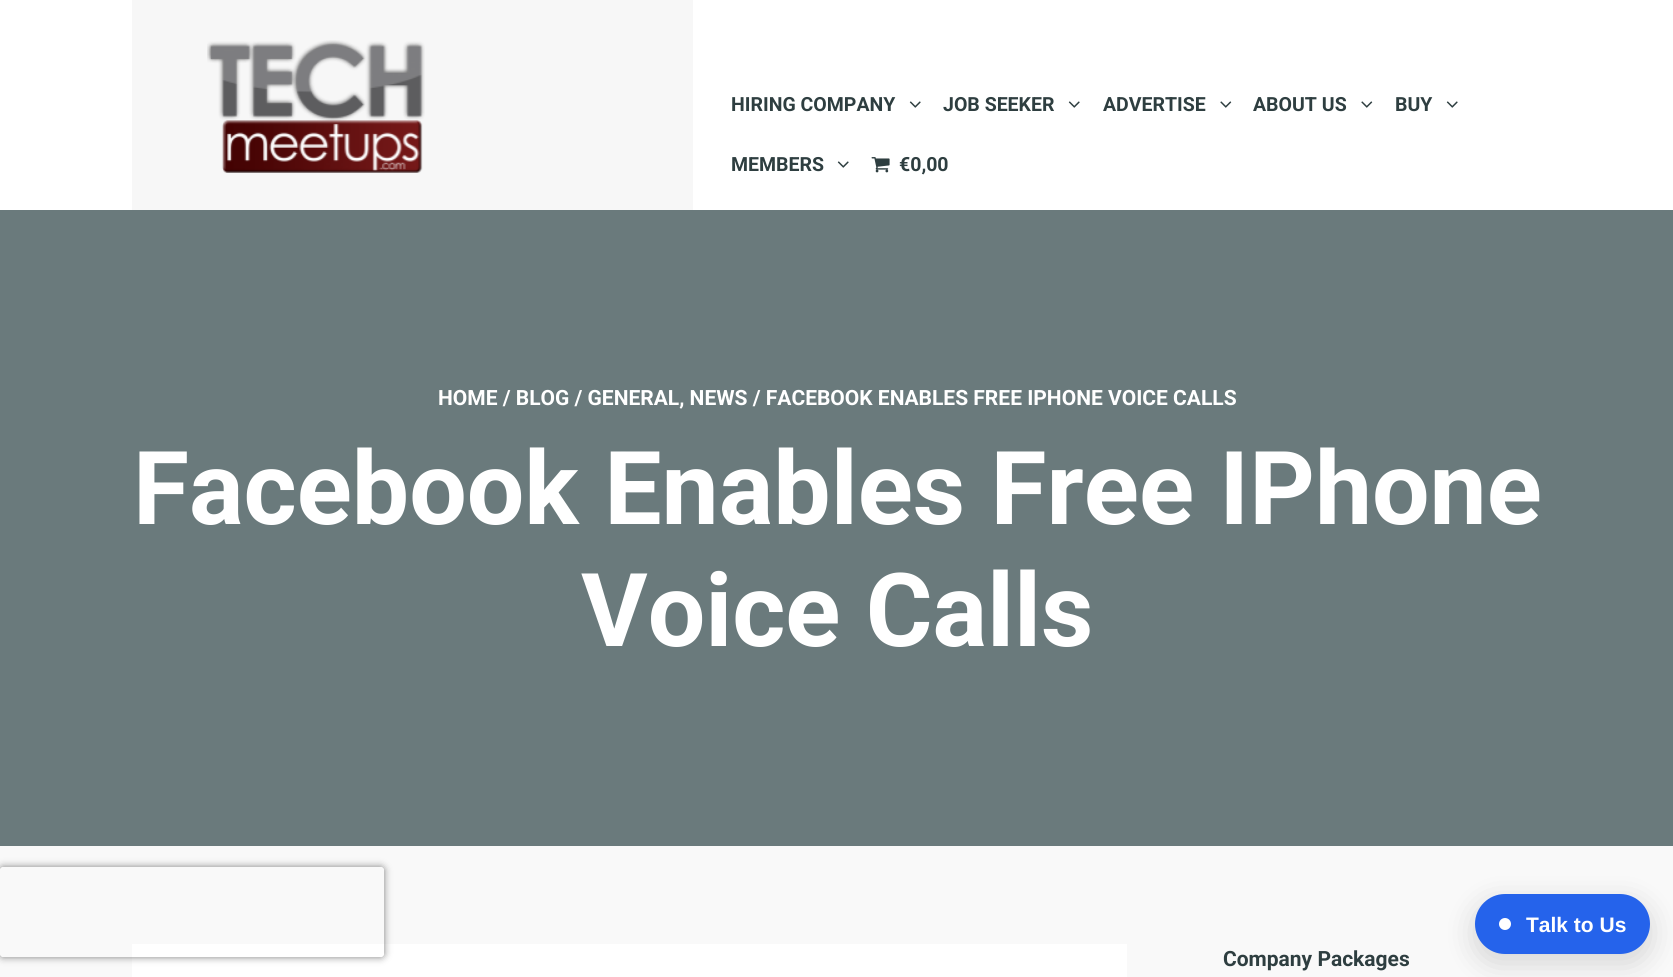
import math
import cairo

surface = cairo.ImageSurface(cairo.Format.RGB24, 1673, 977)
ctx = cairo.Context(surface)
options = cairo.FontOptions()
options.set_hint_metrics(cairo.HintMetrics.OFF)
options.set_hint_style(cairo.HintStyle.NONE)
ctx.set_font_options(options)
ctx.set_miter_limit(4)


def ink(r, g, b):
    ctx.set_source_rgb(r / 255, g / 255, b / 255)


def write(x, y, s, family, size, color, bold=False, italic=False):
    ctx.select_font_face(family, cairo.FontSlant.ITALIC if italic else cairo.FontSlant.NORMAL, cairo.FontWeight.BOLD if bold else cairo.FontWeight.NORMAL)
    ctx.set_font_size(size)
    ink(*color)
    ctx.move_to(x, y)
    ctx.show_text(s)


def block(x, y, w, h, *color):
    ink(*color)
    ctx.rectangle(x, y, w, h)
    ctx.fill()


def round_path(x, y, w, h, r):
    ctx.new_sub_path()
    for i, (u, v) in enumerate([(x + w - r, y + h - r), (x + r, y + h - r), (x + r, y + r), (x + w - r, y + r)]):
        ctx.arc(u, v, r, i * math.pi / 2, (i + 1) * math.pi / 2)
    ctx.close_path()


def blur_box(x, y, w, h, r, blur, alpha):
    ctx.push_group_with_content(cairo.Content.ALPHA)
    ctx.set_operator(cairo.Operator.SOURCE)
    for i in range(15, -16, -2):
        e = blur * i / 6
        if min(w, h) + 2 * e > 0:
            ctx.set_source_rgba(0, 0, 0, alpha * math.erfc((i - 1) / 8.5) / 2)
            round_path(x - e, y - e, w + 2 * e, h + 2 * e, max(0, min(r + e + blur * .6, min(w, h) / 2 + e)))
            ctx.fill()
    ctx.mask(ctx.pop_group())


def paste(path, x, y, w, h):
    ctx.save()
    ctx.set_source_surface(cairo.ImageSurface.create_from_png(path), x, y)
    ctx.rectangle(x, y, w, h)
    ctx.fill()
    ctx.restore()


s1 = dict(family="Roboto", size=19.5, color=(46, 62, 64), bold=True)
s2 = dict(family="Roboto", size=21, color=(255, 255, 255), bold=True)
s3 = dict(family="Roboto", size=102, color=(255, 255, 255), bold=True)
s4 = dict(family="Roboto", size=21, color=(46, 62, 64), bold=True)
s5 = dict(family="Liberation Sans", size=21, color=(255, 255, 255), bold=True)

ink(249, 249, 249)
ctx.paint()
block(0, 0, 1673, 210, 255, 255, 255)
block(132, 0, 561, 210, 247, 247, 247)
paste("pic1.png", 207, 40, 218, 133)
write(731, 111, "HIRING COMPANY", **s1)
paste("pic2.png", 909, 101, 12, 7)
write(943, 111, "JOB SEEKER", **s1)
paste("pic2.png", 1068, 101, 12, 7)
write(1103, 111, "ADVERTISE", **s1)
paste("pic3.png", 1220, 101, 12, 7)
write(1253, 111, "ABOUT US", **s1)
paste("pic3.png", 1361, 101, 12, 7)
write(1395, 111, "BUY", **s1)
paste("pic2.png", 1446, 101, 12, 7)
write(731, 171, "MEMBERS", **s1)
paste("pic2.png", 837, 161, 12, 7)
paste("pic4.png", 871, 157, 19, 16)
write(899, 171, "€0,00", **s1)
block(0, 210, 1673, 636, 106, 122, 124)
write(438, 405, "HOME / BLOG / GENERAL, NEWS / FACEBOOK ENABLES FREE IPHONE VOICE CALLS", **s2)
write(133, 524, "Facebook Enables Free IPhone", **s3)
write(581, 646, "Voice Calls", **s3)
block(132, 944, 995, 33, 255, 255, 255)
write(1223, 966, "Company Packages", **s4)
ctx.save()
ctx.set_fill_rule(cairo.FillRule.EVEN_ODD)
ctx.new_path()
ctx.move_to(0, 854)
ctx.line_to(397, 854)
ctx.line_to(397, 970)
ctx.line_to(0, 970)
ctx.close_path()
ctx.move_to(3, 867)
ctx.line_to(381, 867)
ctx.curve_to(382.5, 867, 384, 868.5, 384, 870)
ctx.line_to(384, 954)
ctx.curve_to(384, 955.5, 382.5, 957, 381, 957)
ctx.line_to(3, 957)
ctx.curve_to(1.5, 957, 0, 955.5, 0, 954)
ctx.line_to(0, 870)
ctx.curve_to(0, 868.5, 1.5, 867, 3, 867)
ctx.close_path()
ctx.clip()
ink(128, 128, 128)
blur_box(0, 867, 384, 90, 3, 4, 1)
ctx.restore()
ink(0, 0, 0)
blur_box(1475, 903, 175, 60, 30, 15, 0.15)
ink(37, 99, 235)
round_path(1475, 894, 175, 60, 30)
ctx.fill()
ink(255, 255, 255)
ctx.arc(1505, 924, 6, 0, 2 * math.pi)
ctx.fill()
write(1526, 932, "Talk to Us", **s5)
surface.write_to_png("screenshot.png")
